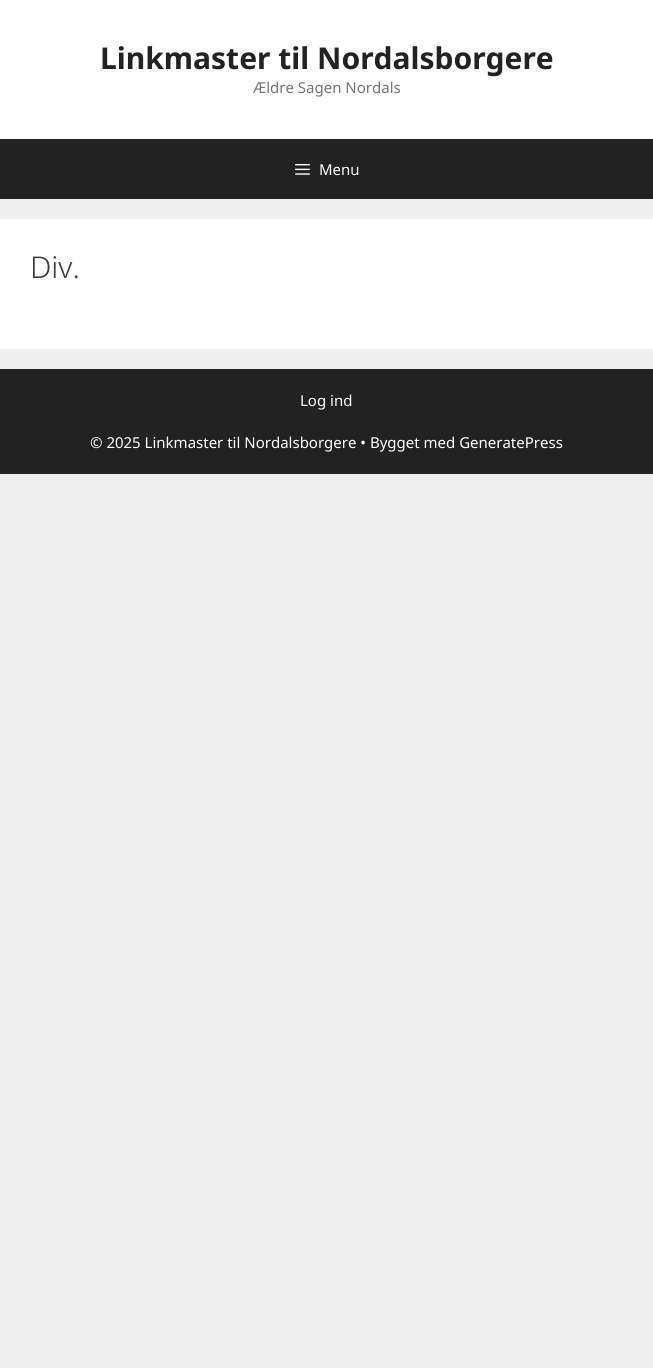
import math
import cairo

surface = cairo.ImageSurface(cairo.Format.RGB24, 653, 1368)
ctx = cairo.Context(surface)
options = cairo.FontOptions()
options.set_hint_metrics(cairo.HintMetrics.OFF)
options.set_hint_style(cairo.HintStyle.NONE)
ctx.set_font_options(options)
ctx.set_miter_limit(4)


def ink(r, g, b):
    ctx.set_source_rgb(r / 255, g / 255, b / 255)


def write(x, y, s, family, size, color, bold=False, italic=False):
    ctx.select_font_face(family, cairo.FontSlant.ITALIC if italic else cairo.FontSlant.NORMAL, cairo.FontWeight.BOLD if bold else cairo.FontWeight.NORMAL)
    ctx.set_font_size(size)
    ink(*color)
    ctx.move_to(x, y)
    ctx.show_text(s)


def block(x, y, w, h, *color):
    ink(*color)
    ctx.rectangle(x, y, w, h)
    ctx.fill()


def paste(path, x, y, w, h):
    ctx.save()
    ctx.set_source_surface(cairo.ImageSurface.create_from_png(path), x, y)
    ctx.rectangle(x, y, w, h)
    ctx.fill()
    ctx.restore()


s1 = dict(family="Noto Sans", size=30, color=(34, 34, 34), bold=True)
s2 = dict(family="Noto Sans", size=15, color=(117, 117, 117))
s3 = dict(family="Noto Sans", size=15, color=(255, 255, 255))
s4 = dict(family="Noto Sans Light", size=30, color=(58, 58, 58))

ink(239, 239, 239)
ctx.paint()
block(0, 0, 653, 139, 255, 255, 255)
write(100, 69, "Linkmaster til Nordalsborgere", **s1)
write(253, 93, "Ældre Sagen Nordals", **s2)
block(0, 139, 653, 60, 34, 34, 34)
paste("pic1.png", 295, 164, 15, 11)
write(319, 175, "Menu", **s3)
block(0, 219, 653, 130, 255, 255, 255)
write(30, 278, "Div.", **s4)
block(0, 369, 653, 105, 34, 34, 34)
write(300, 406, "Log ind", **s3)
write(90, 448, "© 2025 Linkmaster til Nordalsborgere • Bygget med GeneratePress", **s3)
surface.write_to_png("screenshot.png")
